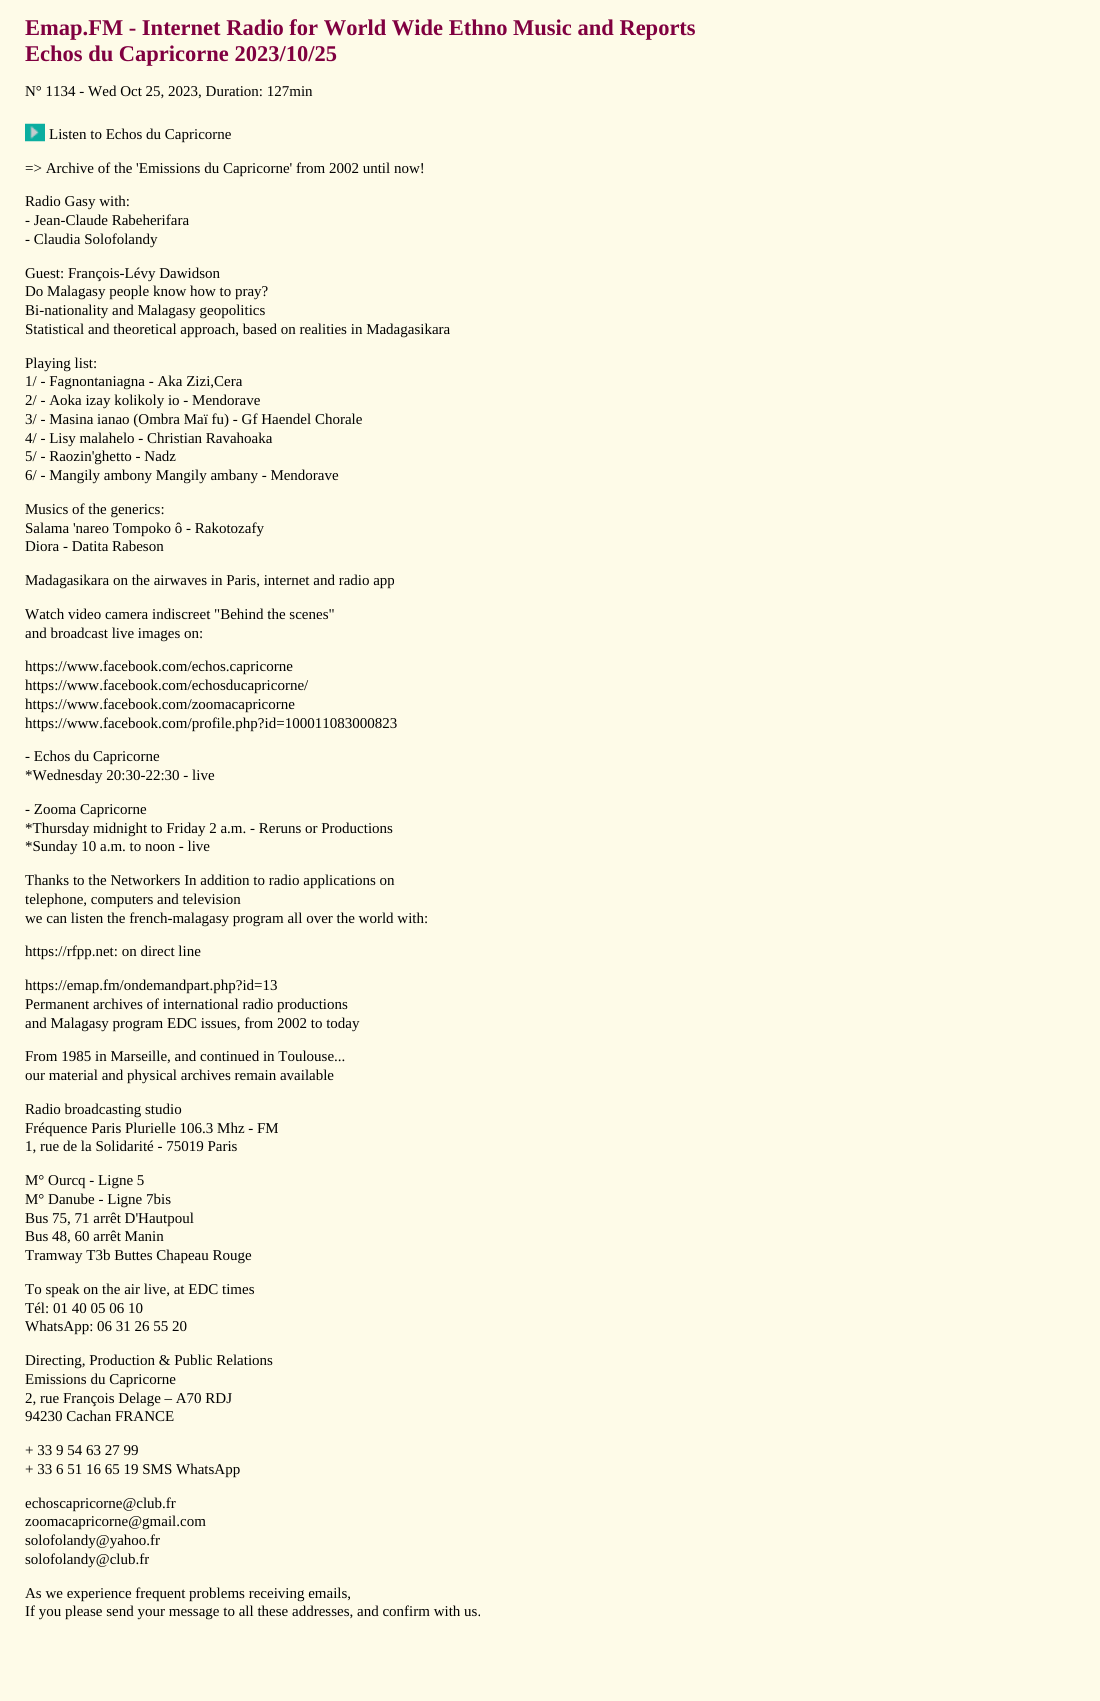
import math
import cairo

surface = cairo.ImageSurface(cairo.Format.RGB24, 1100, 1701)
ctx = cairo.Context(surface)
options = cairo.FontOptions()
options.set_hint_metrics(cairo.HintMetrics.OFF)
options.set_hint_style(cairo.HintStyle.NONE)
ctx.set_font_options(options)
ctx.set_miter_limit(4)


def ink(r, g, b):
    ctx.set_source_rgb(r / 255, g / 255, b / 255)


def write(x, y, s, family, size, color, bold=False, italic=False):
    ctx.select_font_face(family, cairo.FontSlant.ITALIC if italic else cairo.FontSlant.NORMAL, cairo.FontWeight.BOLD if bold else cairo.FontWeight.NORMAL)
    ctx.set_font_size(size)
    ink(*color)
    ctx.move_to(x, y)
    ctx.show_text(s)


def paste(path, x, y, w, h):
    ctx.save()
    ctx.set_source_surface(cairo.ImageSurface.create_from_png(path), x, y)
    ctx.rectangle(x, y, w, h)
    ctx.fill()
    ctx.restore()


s1 = dict(family="Liberation Serif", size=22.5, color=(128, 0, 64), bold=True)
s2 = dict(family="Liberation Serif", size=15, color=(0, 0, 0))

ink(254, 251, 232)
ctx.paint()
write(25, 35, "Emap.FM - Internet Radio for World Wide Ethno Music and Reports", **s1)
write(25, 61, "Echos du Capricorne 2023/10/25", **s1)
write(25, 96, "N° 1134 - Wed Oct 25, 2023, Duration: 127min", **s2)
paste("pic1.png", 25, 123, 20, 19)
write(49, 139, "Listen to Echos du Capricorne", **s2)
write(25, 173, "=> Archive of the 'Emissions du Capricorne' from 2002 until now!", **s2)
write(25, 206, "Radio Gasy with:", **s2)
write(25, 225, "- Jean-Claude Rabeherifara", **s2)
write(25, 244, "- Claudia Solofolandy", **s2)
write(25, 278, "Guest: François-Lévy Dawidson", **s2)
write(25, 296, "Do Malagasy people know how to pray?", **s2)
write(25, 315, "Bi-nationality and Malagasy geopolitics", **s2)
write(25, 334, "Statistical and theoretical approach, based on realities in Madagasikara", **s2)
write(25, 368, "Playing list:", **s2)
write(25, 386, "1/ - Fagnontaniagna - Aka Zizi,Cera", **s2)
write(25, 405, "2/ - Aoka izay kolikoly io - Mendorave", **s2)
write(25, 424, "3/ - Masina ianao (Ombra Maï fu) - Gf Haendel Chorale", **s2)
write(25, 443, "4/ - Lisy malahelo - Christian Ravahoaka", **s2)
write(25, 461, "5/ - Raozin'ghetto - Nadz", **s2)
write(25, 480, "6/ - Mangily ambony Mangily ambany - Mendorave", **s2)
write(25, 514, "Musics of the generics:", **s2)
write(25, 533, "Salama 'nareo Tompoko ô - Rakotozafy", **s2)
write(25, 551, "Diora - Datita Rabeson", **s2)
write(25, 585, "Madagasikara on the airwaves in Paris, internet and radio app", **s2)
write(25, 619, "Watch video camera indiscreet \"Behind the scenes\"", **s2)
write(25, 638, "and broadcast live images on:", **s2)
write(25, 671, "https://www.facebook.com/echos.capricorne", **s2)
write(25, 690, "https://www.facebook.com/echosducapricorne/", **s2)
write(25, 709, "https://www.facebook.com/zoomacapricorne", **s2)
write(25, 728, "https://www.facebook.com/profile.php?id=100011083000823", **s2)
write(25, 761, "- Echos du Capricorne", **s2)
write(25, 780, "*Wednesday 20:30-22:30 - live", **s2)
write(25, 814, "- Zooma Capricorne", **s2)
write(25, 833, "*Thursday midnight to Friday 2 a.m. - Reruns or Productions", **s2)
write(25, 851, "*Sunday 10 a.m. to noon - live", **s2)
write(25, 885, "Thanks to the Networkers In addition to radio applications on", **s2)
write(25, 904, "telephone, computers and television", **s2)
write(25, 923, "we can listen the french-malagasy program all over the world with:", **s2)
write(25, 956, "https://rfpp.net: on direct line", **s2)
write(25, 990, "https://emap.fm/ondemandpart.php?id=13", **s2)
write(25, 1009, "Permanent archives of international radio productions", **s2)
write(25, 1028, "and Malagasy program EDC issues, from 2002 to today", **s2)
write(25, 1061, "From 1985 in Marseille, and continued in Toulouse...", **s2)
write(25, 1080, "our material and physical archives remain available", **s2)
write(25, 1114, "Radio broadcasting studio", **s2)
write(25, 1133, "Fréquence Paris Plurielle 106.3 Mhz - FM", **s2)
write(25, 1151, "1, rue de la Solidarité - 75019 Paris", **s2)
write(25, 1185, "M° Ourcq - Ligne 5", **s2)
write(25, 1204, "M° Danube - Ligne 7bis", **s2)
write(25, 1223, "Bus 75, 71 arrêt D'Hautpoul", **s2)
write(25, 1241, "Bus 48, 60 arrêt Manin", **s2)
write(25, 1260, "Tramway T3b Buttes Chapeau Rouge", **s2)
write(25, 1294, "To speak on the air live, at EDC times", **s2)
write(25, 1313, "Tél: 01 40 05 06 10", **s2)
write(25, 1331, "WhatsApp: 06 31 26 55 20", **s2)
write(25, 1365, "Directing, Production & Public Relations", **s2)
write(25, 1384, "Emissions du Capricorne", **s2)
write(25, 1403, "2, rue François Delage – A70 RDJ", **s2)
write(25, 1421, "94230 Cachan FRANCE", **s2)
write(25, 1455, "+ 33 9 54 63 27 99", **s2)
write(25, 1474, "+ 33 6 51 16 65 19 SMS WhatsApp", **s2)
write(25, 1508, "echoscapricorne@club.fr", **s2)
write(25, 1526, "zoomacapricorne@gmail.com", **s2)
write(25, 1545, "solofolandy@yahoo.fr", **s2)
write(25, 1564, "solofolandy@club.fr", **s2)
write(25, 1598, "As we experience frequent problems receiving emails,", **s2)
write(25, 1616, "If you please send your message to all these addresses, and confirm with us.", **s2)
surface.write_to_png("screenshot.png")
